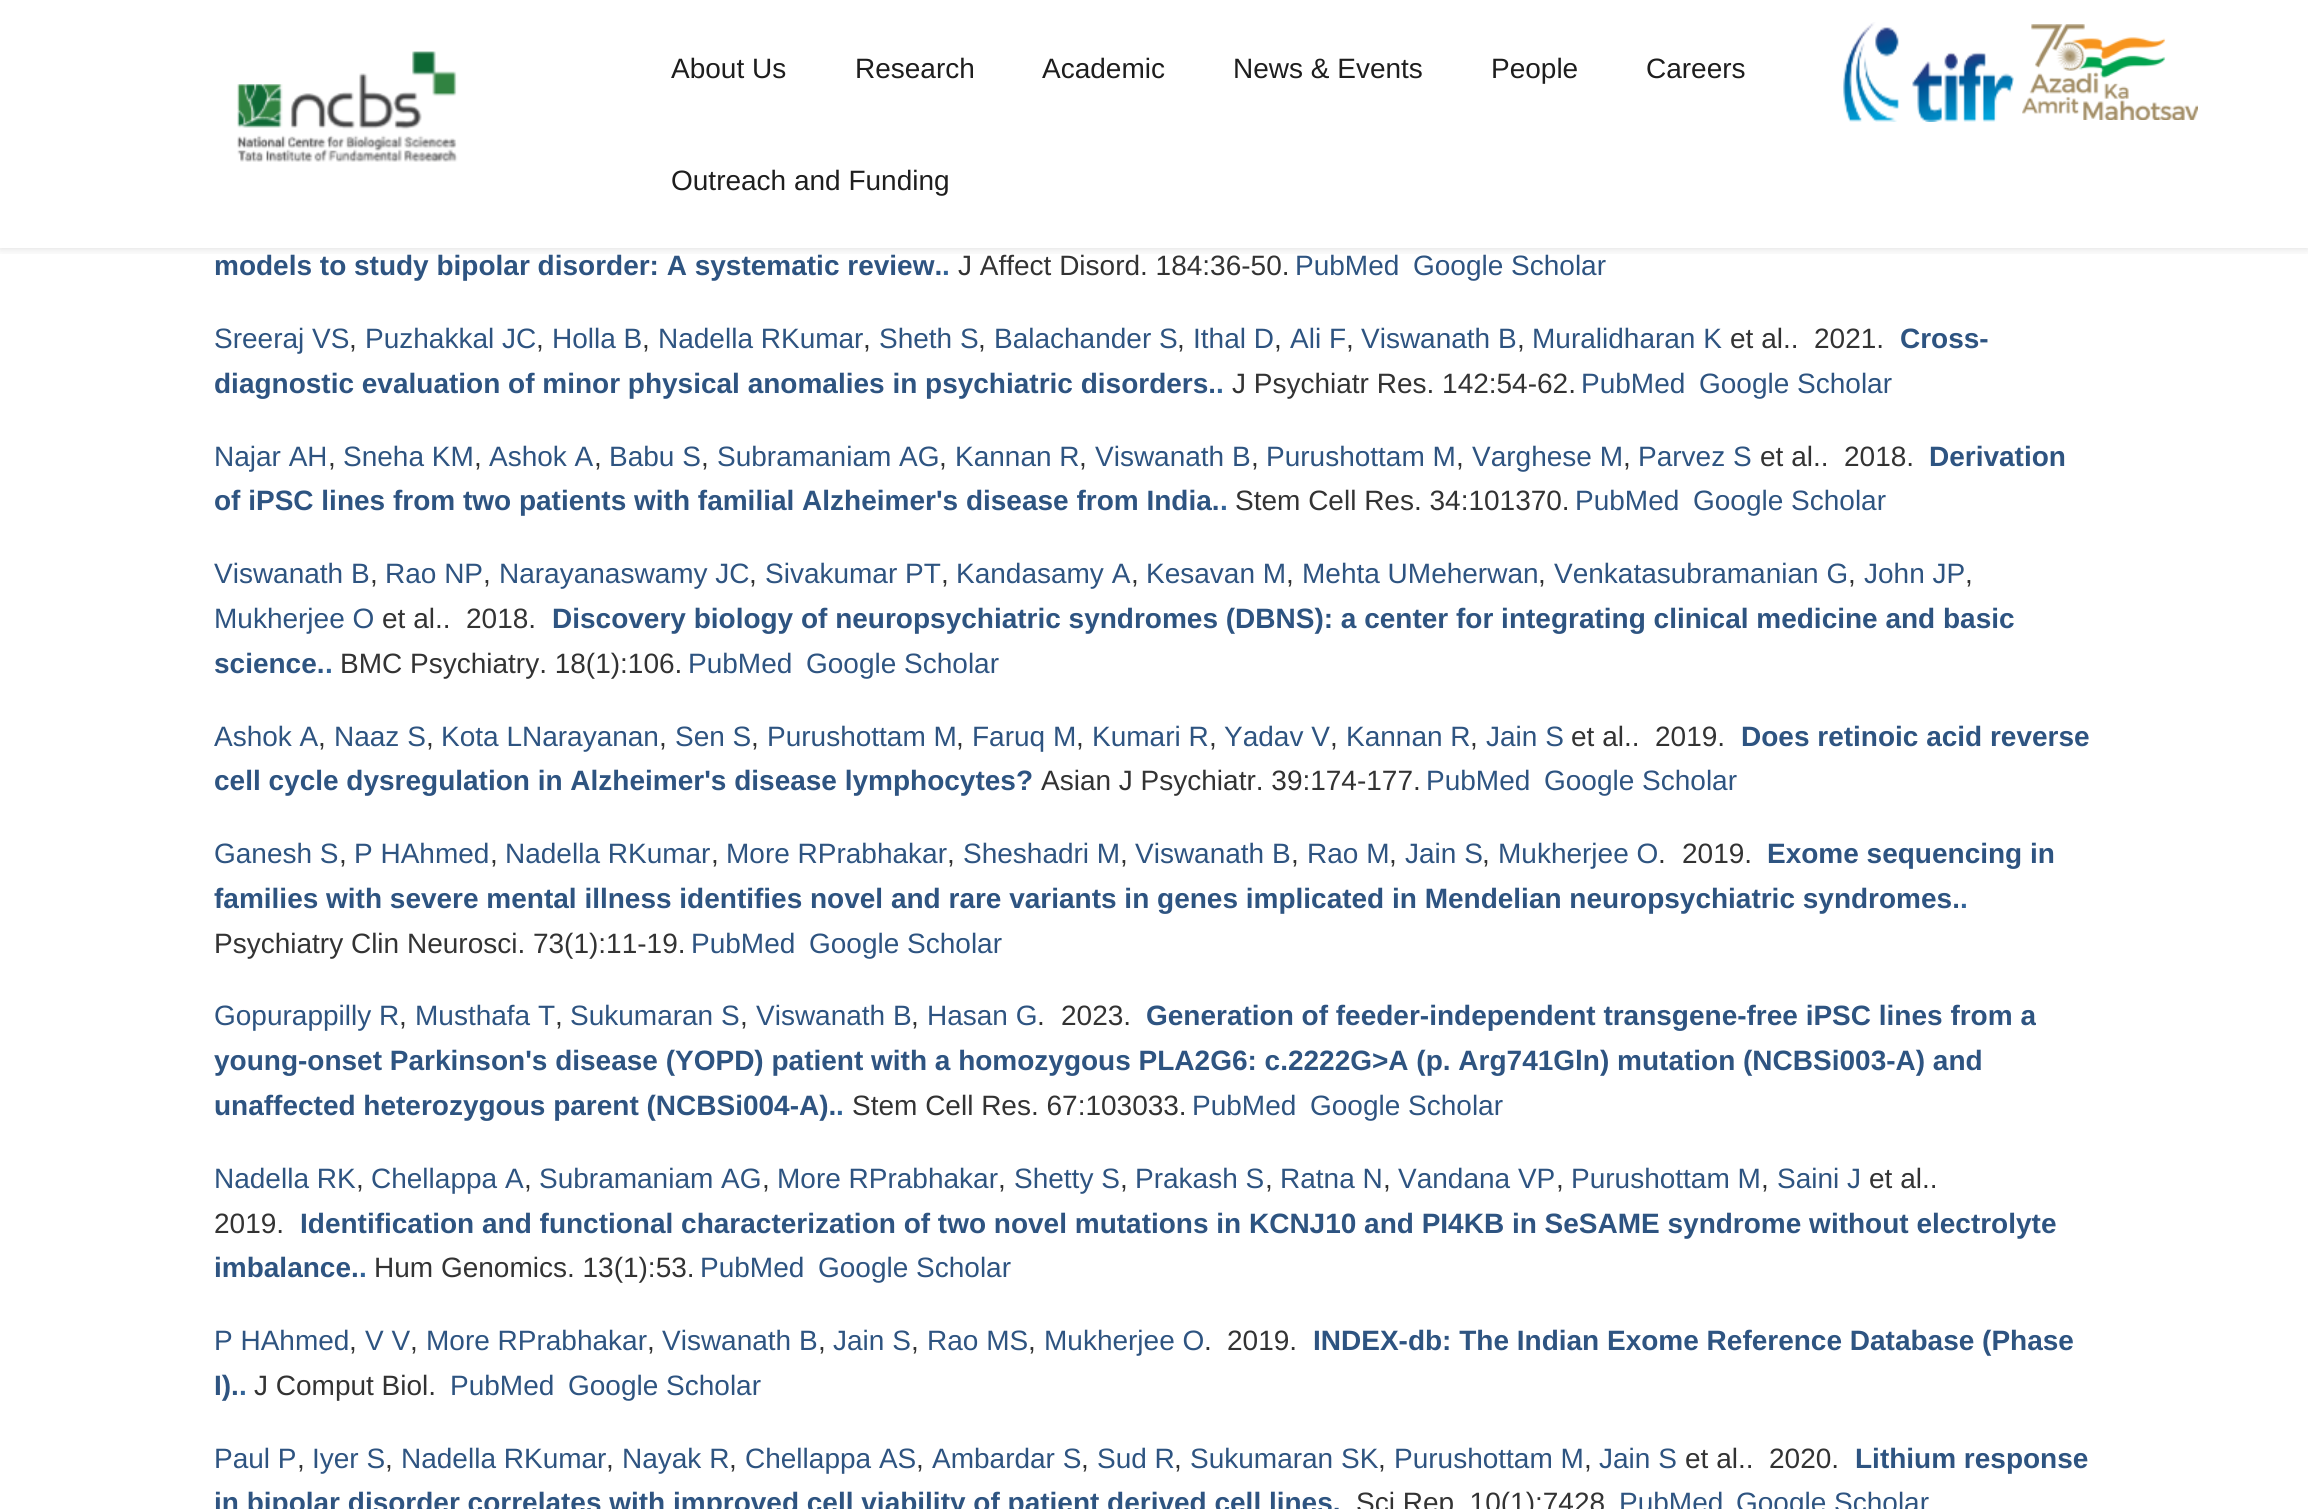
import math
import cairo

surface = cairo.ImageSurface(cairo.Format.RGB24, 2308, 1509)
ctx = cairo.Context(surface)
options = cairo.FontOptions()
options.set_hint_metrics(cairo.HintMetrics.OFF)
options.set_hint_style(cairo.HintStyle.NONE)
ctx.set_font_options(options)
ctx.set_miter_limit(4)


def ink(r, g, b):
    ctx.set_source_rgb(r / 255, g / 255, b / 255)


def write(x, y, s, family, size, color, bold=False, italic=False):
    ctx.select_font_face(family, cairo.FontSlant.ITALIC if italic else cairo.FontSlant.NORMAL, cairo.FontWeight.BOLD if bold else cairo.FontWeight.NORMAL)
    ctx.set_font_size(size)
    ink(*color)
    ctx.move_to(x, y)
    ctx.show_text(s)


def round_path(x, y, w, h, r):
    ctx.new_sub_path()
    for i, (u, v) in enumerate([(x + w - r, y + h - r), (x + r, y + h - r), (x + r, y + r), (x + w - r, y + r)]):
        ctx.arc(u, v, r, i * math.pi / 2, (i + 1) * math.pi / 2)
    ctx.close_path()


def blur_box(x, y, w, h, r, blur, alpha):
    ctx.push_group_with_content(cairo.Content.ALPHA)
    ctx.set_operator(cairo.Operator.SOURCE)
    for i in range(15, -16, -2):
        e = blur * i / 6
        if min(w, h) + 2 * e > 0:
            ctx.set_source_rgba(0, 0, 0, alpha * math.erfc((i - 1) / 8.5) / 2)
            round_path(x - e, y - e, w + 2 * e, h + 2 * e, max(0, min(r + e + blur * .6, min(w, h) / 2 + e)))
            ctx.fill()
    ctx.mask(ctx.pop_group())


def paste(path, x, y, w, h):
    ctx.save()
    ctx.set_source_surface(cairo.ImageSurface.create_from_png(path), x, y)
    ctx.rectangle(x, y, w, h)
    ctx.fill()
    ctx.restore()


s1 = dict(family="Liberation Sans", size=28, color=(30, 30, 30))
s2 = dict(family="Liberation Sans", size=28, color=(46, 84, 129), bold=True)
s3 = dict(family="Liberation Sans", size=28, color=(51, 101, 153), bold=True)
s4 = dict(family="Liberation Sans", size=28, color=(51, 51, 51))
s5 = dict(family="Liberation Sans", size=28, color=(46, 84, 129))

ink(255, 255, 255)
ctx.paint()
ctx.save()
ctx.rectangle(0, 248, 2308, 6)
ctx.clip()
ink(0, 0, 0)
blur_box(0, 0, 2308, 248, 0, 5, 0.15)
ctx.restore()
paste("pic1.png", 237, 51, 221, 111)
write(671, 78, "About Us", **s1)
write(855, 78, "Research", **s1)
write(1042, 78, "Academic", **s1)
write(1233, 78, "News & Events", **s1)
write(1491, 78, "People", **s1)
write(1646, 78, "Careers", **s1)
write(671, 190, "Outreach and Funding", **s1)
paste("pic2.png", 1843, 22, 171, 100)
paste("pic3.png", 2022, 24, 176, 96)
write(214, 275, "models to study bipolar disorder: A systematic review.", **s2)
write(942, 275, ".", **s3)
write(958, 275, "J Affect Disord. 184:36-50.", **s4)
write(1295, 275, "PubMed", **s5)
write(1413, 275, "Google Scholar", **s5)
write(214, 348, "Sreeraj VS", **s5)
write(349, 348, ",", **s4)
write(365, 348, "Puzhakkal JC", **s5)
write(536, 348, ",", **s4)
write(552, 348, "Holla B", **s5)
write(642, 348, ",", **s4)
write(658, 348, "Nadella RKumar", **s5)
write(863, 348, ",", **s4)
write(879, 348, "Sheth S", **s5)
write(978, 348, ",", **s4)
write(994, 348, "Balachander S", **s5)
write(1177, 348, ",", **s4)
write(1193, 348, "Ithal D", **s5)
write(1274, 348, ",", **s4)
write(1290, 348, "Ali F", **s5)
write(1346, 348, ",", **s4)
write(1361, 348, "Viswanath B", **s5)
write(1517, 348, ",", **s4)
write(1532, 348, "Muralidharan K", **s5)
write(1730, 348, "et al..", **s4)
write(1814, 348, "2021.", **s4)
write(1900, 348, "Cross-", **s2)
write(214, 393, "diagnostic evaluation of minor physical anomalies in psychiatric disorders.", **s2)
write(1216, 393, ".", **s3)
write(1232, 393, "J Psychiatr Res. 142:54-62.", **s4)
write(1581, 393, "PubMed", **s5)
write(1699, 393, "Google Scholar", **s5)
write(214, 466, "Najar AH", **s5)
write(328, 466, ",", **s4)
write(343, 466, "Sneha KM", **s5)
write(474, 466, ",", **s4)
write(489, 466, "Ashok A", **s5)
write(594, 466, ",", **s4)
write(609, 466, "Babu S", **s5)
write(701, 466, ",", **s4)
write(717, 466, "Subramaniam AG", **s5)
write(939, 466, ",", **s4)
write(955, 466, "Kannan R", **s5)
write(1079, 466, ",", **s4)
write(1095, 466, "Viswanath B", **s5)
write(1251, 466, ",", **s4)
write(1266, 466, "Purushottam M", **s5)
write(1456, 466, ",", **s4)
write(1472, 466, "Varghese M", **s5)
write(1623, 466, ",", **s4)
write(1638, 466, "Parvez S", **s5)
write(1760, 466, "et al..", **s4)
write(1844, 466, "2018.", **s4)
write(1929, 466, "Derivation", **s2)
write(214, 510, "of iPSC lines from two patients with familial Alzheimer's disease from India.", **s2)
write(1220, 510, ".", **s3)
write(1235, 510, "Stem Cell Res. 34:101370.", **s4)
write(1575, 510, "PubMed", **s5)
write(1693, 510, "Google Scholar", **s5)
write(214, 583, "Viswanath B", **s5)
write(370, 583, ",", **s4)
write(385, 583, "Rao NP", **s5)
write(483, 583, ",", **s4)
write(499, 583, "Narayanaswamy JC", **s5)
write(749, 583, ",", **s4)
write(765, 583, "Sivakumar PT", **s5)
write(941, 583, ",", **s4)
write(956, 583, "Kandasamy A", **s5)
write(1131, 583, ",", **s4)
write(1146, 583, "Kesavan M", **s5)
write(1286, 583, ",", **s4)
write(1302, 583, "Mehta UMeherwan", **s5)
write(1538, 583, ",", **s4)
write(1554, 583, "Venkatasubramanian G", **s5)
write(1848, 583, ",", **s4)
write(1864, 583, "John JP", **s5)
write(1965, 583, ",", **s4)
write(214, 628, "Mukherjee O", **s5)
write(382, 628, "et al..", **s4)
write(466, 628, "2018.", **s4)
write(552, 628, "Discovery biology of neuropsychiatric syndromes (DBNS): a center for integrating clinical medicine and basic", **s2)
write(214, 673, "science.", **s2)
write(325, 673, ".", **s3)
write(340, 673, "BMC Psychiatry. 18(1):106.", **s4)
write(688, 673, "PubMed", **s5)
write(806, 673, "Google Scholar", **s5)
write(214, 746, "Ashok A", **s5)
write(318, 746, ",", **s4)
write(334, 746, "Naaz S", **s5)
write(426, 746, ",", **s4)
write(441, 746, "Kota LNarayanan", **s5)
write(659, 746, ",", **s4)
write(675, 746, "Sen S", **s5)
write(751, 746, ",", **s4)
write(767, 746, "Purushottam M", **s5)
write(956, 746, ",", **s4)
write(972, 746, "Faruq M", **s5)
write(1076, 746, ",", **s4)
write(1092, 746, "Kumari R", **s5)
write(1209, 746, ",", **s4)
write(1224, 746, "Yadav V", **s5)
write(1330, 746, ",", **s4)
write(1346, 746, "Kannan R", **s5)
write(1470, 746, ",", **s4)
write(1486, 746, "Jain S", **s5)
write(1571, 746, "et al..", **s4)
write(1655, 746, "2019.", **s4)
write(1741, 746, "Does retinoic acid reverse", **s2)
write(214, 790, "cell cycle dysregulation in Alzheimer's disease lymphocytes?", **s2)
write(1041, 790, "Asian J Psychiatr. 39:174-177.", **s4)
write(1426, 790, "PubMed", **s5)
write(1544, 790, "Google Scholar", **s5)
write(214, 863, "Ganesh S", **s5)
write(339, 863, ",", **s4)
write(354, 863, "P HAhmed", **s5)
write(490, 863, ",", **s4)
write(505, 863, "Nadella RKumar", **s5)
write(711, 863, ",", **s4)
write(726, 863, "More RPrabhakar", **s5)
write(947, 863, ",", **s4)
write(963, 863, "Sheshadri M", **s5)
write(1120, 863, ",", **s4)
write(1135, 863, "Viswanath B", **s5)
write(1291, 863, ",", **s4)
write(1307, 863, "Rao M", **s5)
write(1389, 863, ",", **s4)
write(1405, 863, "Jain S", **s5)
write(1482, 863, ",", **s4)
write(1498, 863, "Mukherjee O", **s5)
write(1658, 863, ".", **s4)
write(1682, 863, "2019.", **s4)
write(1767, 863, "Exome sequencing in", **s2)
write(214, 908, "families with severe mental illness identifies novel and rare variants in genes implicated in Mendelian neuropsychiatric syndromes.", **s2)
write(1960, 908, ".", **s3)
write(214, 953, "Psychiatry Clin Neurosci. 73(1):11-19.", **s4)
write(691, 953, "PubMed", **s5)
write(809, 953, "Google Scholar", **s5)
write(214, 1025, "Gopurappilly R", **s5)
write(399, 1025, ",", **s4)
write(415, 1025, "Musthafa T", **s5)
write(555, 1025, ",", **s4)
write(570, 1025, "Sukumaran S", **s5)
write(740, 1025, ",", **s4)
write(756, 1025, "Viswanath B", **s5)
write(911, 1025, ",", **s4)
write(927, 1025, "Hasan G", **s5)
write(1037, 1025, ".", **s4)
write(1061, 1025, "2023.", **s4)
write(1146, 1025, "Generation of feeder-independent transgene-free iPSC lines from a", **s2)
write(214, 1070, "young-onset Parkinson's disease (YOPD) patient with a homozygous PLA2G6: c.2222G>A (p. Arg741Gln) mutation (NCBSi003-A) and", **s2)
write(214, 1115, "unaffected heterozygous parent (NCBSi004-A).", **s2)
write(836, 1115, ".", **s3)
write(852, 1115, "Stem Cell Res. 67:103033.", **s4)
write(1192, 1115, "PubMed", **s5)
write(1310, 1115, "Google Scholar", **s5)
write(214, 1188, "Nadella RK", **s5)
write(356, 1188, ",", **s4)
write(371, 1188, "Chellappa A", **s5)
write(524, 1188, ",", **s4)
write(539, 1188, "Subramaniam AG", **s5)
write(762, 1188, ",", **s4)
write(777, 1188, "More RPrabhakar", **s5)
write(998, 1188, ",", **s4)
write(1014, 1188, "Shetty S", **s5)
write(1120, 1188, ",", **s4)
write(1135, 1188, "Prakash S", **s5)
write(1265, 1188, ",", **s4)
write(1280, 1188, "Ratna N", **s5)
write(1383, 1188, ",", **s4)
write(1398, 1188, "Vandana VP", **s5)
write(1556, 1188, ",", **s4)
write(1571, 1188, "Purushottam M", **s5)
write(1761, 1188, ",", **s4)
write(1777, 1188, "Saini J", **s5)
write(1869, 1188, "et al..", **s4)
write(214, 1233, "2019.", **s4)
write(300, 1233, "Identification and functional characterization of two novel mutations in KCNJ10 and PI4KB in SeSAME syndrome without electrolyte", **s2)
write(214, 1277, "imbalance.", **s2)
write(359, 1277, ".", **s3)
write(374, 1277, "Hum Genomics. 13(1):53.", **s4)
write(700, 1277, "PubMed", **s5)
write(818, 1277, "Google Scholar", **s5)
write(214, 1350, "P HAhmed", **s5)
write(349, 1350, ",", **s4)
write(365, 1350, "V V", **s5)
write(410, 1350, ",", **s4)
write(426, 1350, "More RPrabhakar", **s5)
write(647, 1350, ",", **s4)
write(662, 1350, "Viswanath B", **s5)
write(818, 1350, ",", **s4)
write(833, 1350, "Jain S", **s5)
write(911, 1350, ",", **s4)
write(927, 1350, "Rao MS", **s5)
write(1028, 1350, ",", **s4)
write(1044, 1350, "Mukherjee O", **s5)
write(1204, 1350, ".", **s4)
write(1227, 1350, "2019.", **s4)
write(1313, 1350, "INDEX-db: The Indian Exome Reference Database (Phase", **s2)
write(214, 1395, "I).", **s2)
write(239, 1395, ".", **s3)
write(254, 1395, "J Comput Biol.", **s4)
write(450, 1395, "PubMed", **s5)
write(568, 1395, "Google Scholar", **s5)
write(214, 1468, "Paul P", **s5)
write(297, 1468, ",", **s4)
write(312, 1468, "Iyer S", **s5)
write(385, 1468, ",", **s4)
write(401, 1468, "Nadella RKumar", **s5)
write(606, 1468, ",", **s4)
write(622, 1468, "Nayak R", **s5)
write(729, 1468, ",", **s4)
write(745, 1468, "Chellappa AS", **s5)
write(916, 1468, ",", **s4)
write(932, 1468, "Ambardar S", **s5)
write(1081, 1468, ",", **s4)
write(1097, 1468, "Sud R", **s5)
write(1174, 1468, ",", **s4)
write(1190, 1468, "Sukumaran SK", **s5)
write(1378, 1468, ",", **s4)
write(1394, 1468, "Purushottam M", **s5)
write(1584, 1468, ",", **s4)
write(1599, 1468, "Jain S", **s5)
write(1685, 1468, "et al..", **s4)
write(1769, 1468, "2020.", **s4)
write(1855, 1468, "Lithium response", **s2)
write(214, 1512, "in bipolar disorder correlates with improved cell viability of patient derived cell lines.", **s2)
write(1356, 1512, "Sci Rep. 10(1):7428", **s4)
write(1619, 1512, "PubMed", **s5)
write(1736, 1512, "Google Scholar", **s5)
surface.write_to_png("screenshot.png")
